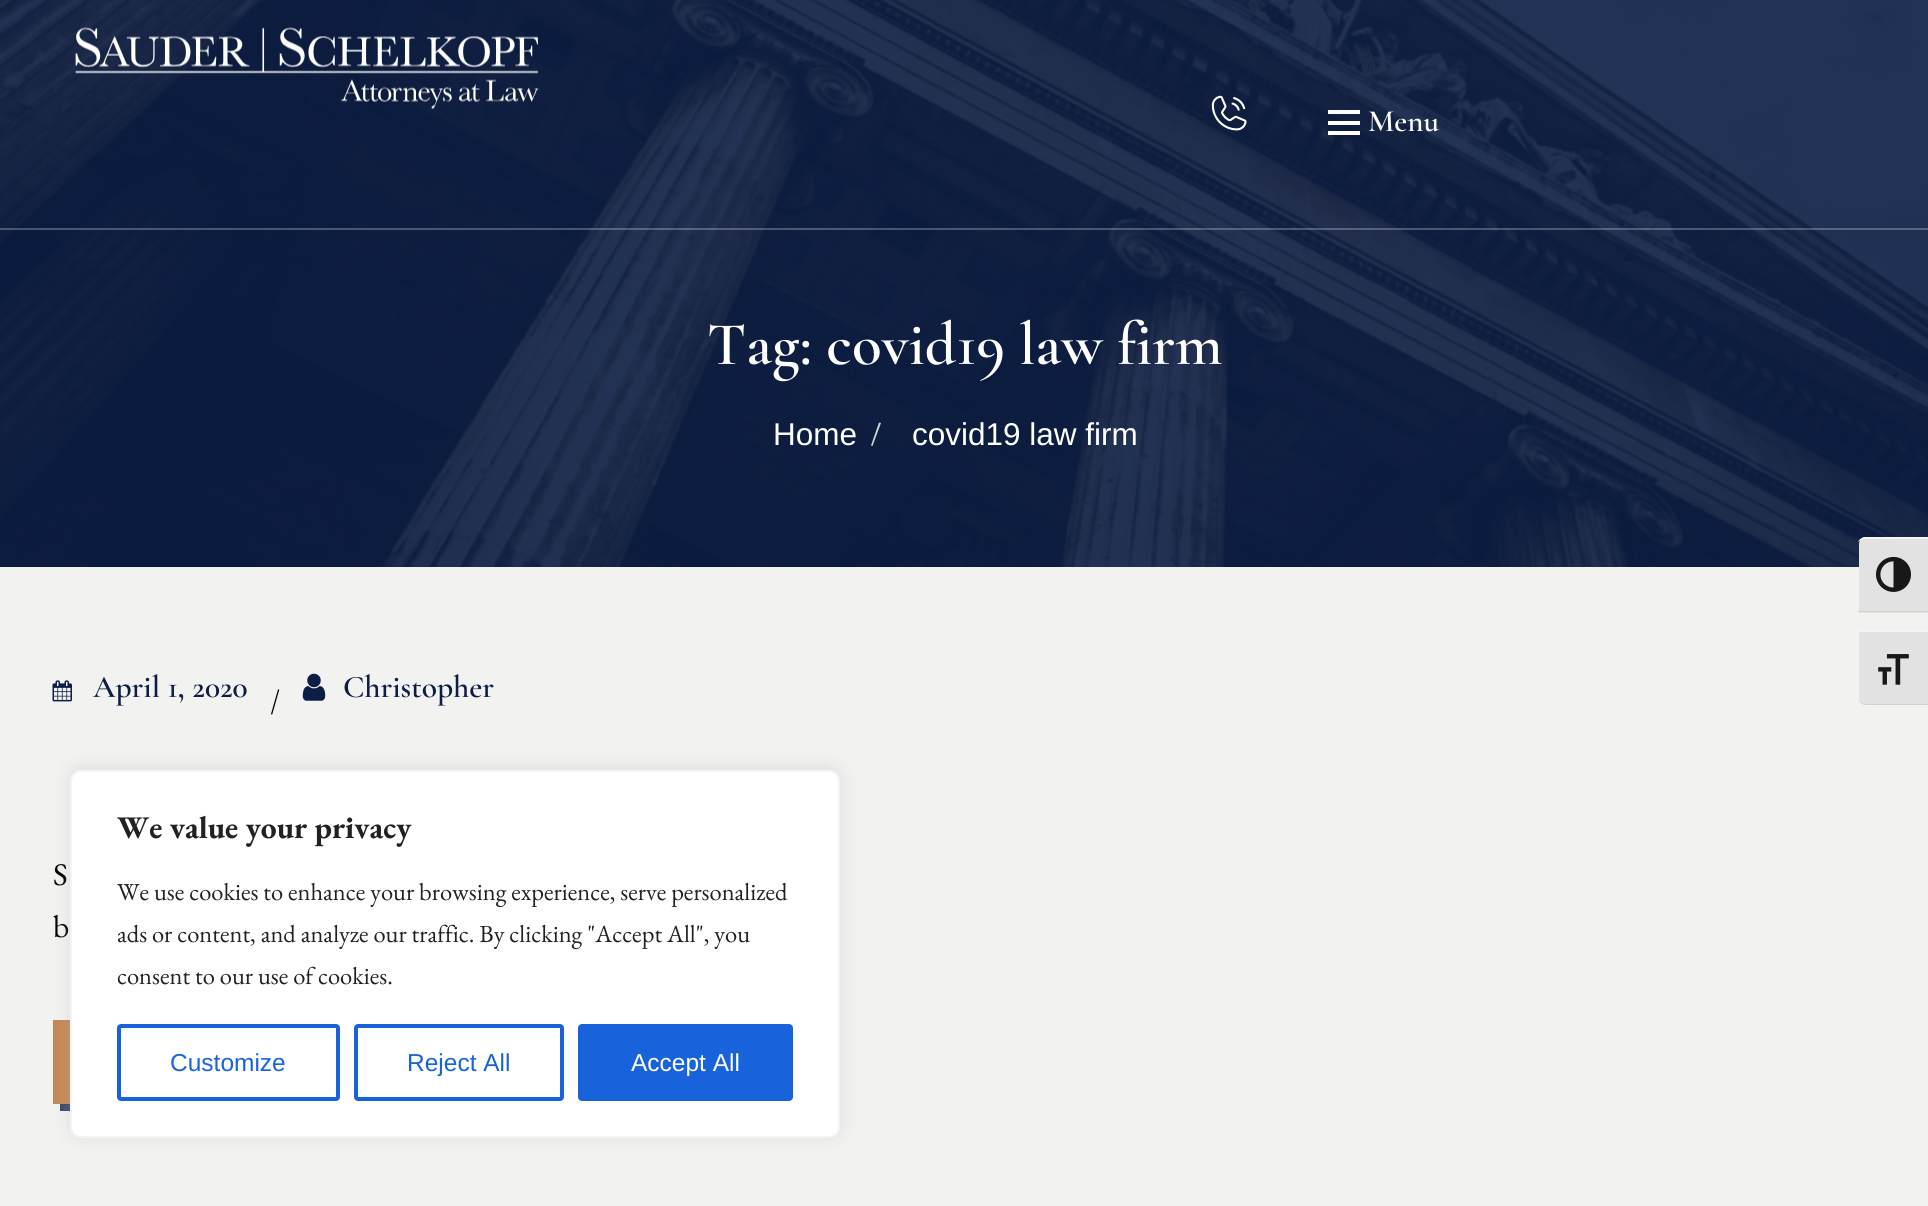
import math
import cairo

surface = cairo.ImageSurface(cairo.Format.RGB24, 1928, 1206)
ctx = cairo.Context(surface)
options = cairo.FontOptions()
options.set_hint_metrics(cairo.HintMetrics.OFF)
options.set_hint_style(cairo.HintStyle.NONE)
ctx.set_font_options(options)
ctx.set_miter_limit(4)


def ink(r, g, b):
    ctx.set_source_rgb(r / 255, g / 255, b / 255)


def write(x, y, s, family, size, color, bold=False, italic=False):
    ctx.select_font_face(family, cairo.FontSlant.ITALIC if italic else cairo.FontSlant.NORMAL, cairo.FontWeight.BOLD if bold else cairo.FontWeight.NORMAL)
    ctx.set_font_size(size)
    ink(*color)
    ctx.move_to(x, y)
    ctx.show_text(s)


def block(x, y, w, h, *color):
    ink(*color)
    ctx.rectangle(x, y, w, h)
    ctx.fill()


def round_path(x, y, w, h, r):
    ctx.new_sub_path()
    for i, (u, v) in enumerate([(x + w - r, y + h - r), (x + r, y + h - r), (x + r, y + r), (x + w - r, y + r)]):
        ctx.arc(u, v, r, i * math.pi / 2, (i + 1) * math.pi / 2)
    ctx.close_path()


def blur_box(x, y, w, h, r, blur, alpha):
    ctx.push_group_with_content(cairo.Content.ALPHA)
    ctx.set_operator(cairo.Operator.SOURCE)
    for i in range(15, -16, -2):
        e = blur * i / 6
        if min(w, h) + 2 * e > 0:
            ctx.set_source_rgba(0, 0, 0, alpha * math.erfc((i - 1) / 8.5) / 2)
            round_path(x - e, y - e, w + 2 * e, h + 2 * e, max(0, min(r + e + blur * .6, min(w, h) / 2 + e)))
            ctx.fill()
    ctx.mask(ctx.pop_group())


def paste(path, x, y, w, h):
    ctx.save()
    ctx.set_source_surface(cairo.ImageSurface.create_from_png(path), x, y)
    ctx.rectangle(x, y, w, h)
    ctx.fill()
    ctx.restore()


s1 = dict(family="Cormorant Garamond SemiBold", size=31, color=(255, 255, 255))
s2 = dict(family="Cormorant Garamond SemiBold", size=61.25, color=(255, 255, 255))
s3 = dict(family="Liberation Sans", size=31.5, color=(255, 255, 255))
s4 = dict(family="Cormorant Garamond SemiBold", size=31.5, color=(12, 30, 69))
s5 = dict(family="Cormorant Garamond SemiBold", size=28, color=(0, 0, 0))
s6 = dict(family="EB Garamond", size=31.5, color=(0, 0, 0))
s7 = dict(family="EB Garamond", size=31.5, color=(33, 33, 33), bold=True)
s8 = dict(family="EB Garamond", size=24.5, color=(33, 33, 33))
s9 = dict(family="Liberation Sans", size=24.5, color=(24, 99, 220))
s10 = dict(family="Liberation Sans", size=24.5, color=(255, 255, 255))

ink(242, 242, 240)
ctx.paint()
paste("pic3.png", 0, 0, 1928, 567)
ctx.set_source_rgba(1, 1, 1, 0.25)
ctx.rectangle(0, 228, 1928, 2)
ctx.fill()
paste("pic1.png", 75, 27, 464, 82)
paste("pic2.png", 1211, 95, 36, 36)
block(1328, 121, 32, 4, 255, 255, 255)
block(1328, 110, 32, 4, 255, 255, 255)
block(1328, 131, 32, 4, 255, 255, 255)
write(1368, 131, "Menu", **s1)
write(707, 364, "Tag: covid19 law firm", **s2)
write(773, 445, "Home", **s3)
ink(207, 210, 217)
ctx.new_path()
ctx.move_to(879, 422.5)
ctx.line_to(881, 423)
ctx.line_to(872.5, 446)
ctx.line_to(871, 445.5)
ctx.close_path()
ctx.fill()
write(912, 445, "covid19 law firm", **s3)
paste("pic4.png", 52, 680, 20, 22)
write(93, 697, "April 1, 2020", **s4)
ctx.save()
ctx.translate(280, 694)
ctx.rotate(180 * math.pi / 180)
write(0, 0, "/", **s5)
ctx.restore()
paste("pic5.png", 302, 673, 24, 28)
write(343, 697, "Christopher", **s4)
write(53, 885, "S", **s6)
write(53, 937, "b", **s6)
ink(58, 72, 103)
ctx.new_path()
ctx.move_to(60, 1104)
ctx.line_to(60, 1111)
ctx.line_to(333, 1111)
ctx.line_to(333, 1027)
ctx.line_to(326, 1027)
ctx.line_to(326, 1104)
ctx.close_path()
ctx.fill()
ctx.rectangle(54, 1021, 271, 82)
ink(194, 137, 88)
ctx.stroke()
block(55, 1022, 15, 80, 194, 137, 88)
ink(226, 226, 226)
ctx.new_path()
ctx.move_to(1866, 537)
ctx.line_to(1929, 537)
ctx.line_to(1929, 613)
ctx.line_to(1859, 613)
ctx.line_to(1859, 544)
ctx.curve_to(1859, 540, 1862, 537, 1866, 537)
ctx.close_path()
ctx.fill()
ink(245, 245, 245)
ctx.new_path()
ctx.move_to(1866, 539)
ctx.curve_to(1863, 539, 1860, 540, 1858, 542)
ctx.curve_to(1859, 539, 1862, 538, 1864, 537)
ctx.line_to(1928, 537)
ctx.line_to(1928, 539)
ctx.close_path()
ctx.fill()
block(1858, 611, 70, 1, 210, 210, 210)
paste("pic6.png", 1876, 556, 35, 36)
ink(226, 226, 226)
ctx.new_path()
ctx.move_to(1859, 630)
ctx.line_to(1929, 630)
ctx.line_to(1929, 705)
ctx.line_to(1866, 705)
ctx.curve_to(1862, 705, 1859, 702, 1859, 698)
ctx.close_path()
ctx.fill()
block(1858, 630, 70, 2, 245, 245, 245)
ink(210, 210, 210)
ctx.new_path()
ctx.move_to(1928, 705)
ctx.line_to(1928, 704)
ctx.line_to(1866, 704)
ctx.curve_to(1863, 704, 1860, 702, 1858, 700)
ctx.curve_to(1860, 703, 1863, 705, 1866, 705)
ctx.close_path()
ctx.fill()
paste("pic7.png", 1878, 654, 31, 31)
ink(172, 171, 171)
blur_box(70, 768, 770, 368, 11, 9, 0.3)
ink(255, 255, 255)
round_path(71, 771, 768, 366, 10)
ctx.fill_preserve()
ink(244, 244, 244)
ctx.stroke()
write(117, 838, "We value your privacy", **s7)
write(117, 900, "We use cookies to enhance your browsing experience, serve personalized", **s8)
write(117, 942, "ads or content, and analyze our traffic. By clicking \"Accept All\", you", **s8)
write(117, 984, "consent to our use of cookies.", **s8)
round_path(119, 1026, 219, 73, 2)
ink(24, 99, 220)
ctx.set_line_width(4)
ctx.stroke()
write(170, 1071, "Customize", **s9)
round_path(356, 1026, 206, 73, 2)
ctx.stroke()
write(407, 1071, "Reject All", **s9)
round_path(580, 1026, 211, 73, 2)
ctx.fill_preserve()
ctx.stroke()
write(631, 1071, "Accept All", **s10)
surface.write_to_png("screenshot.png")
